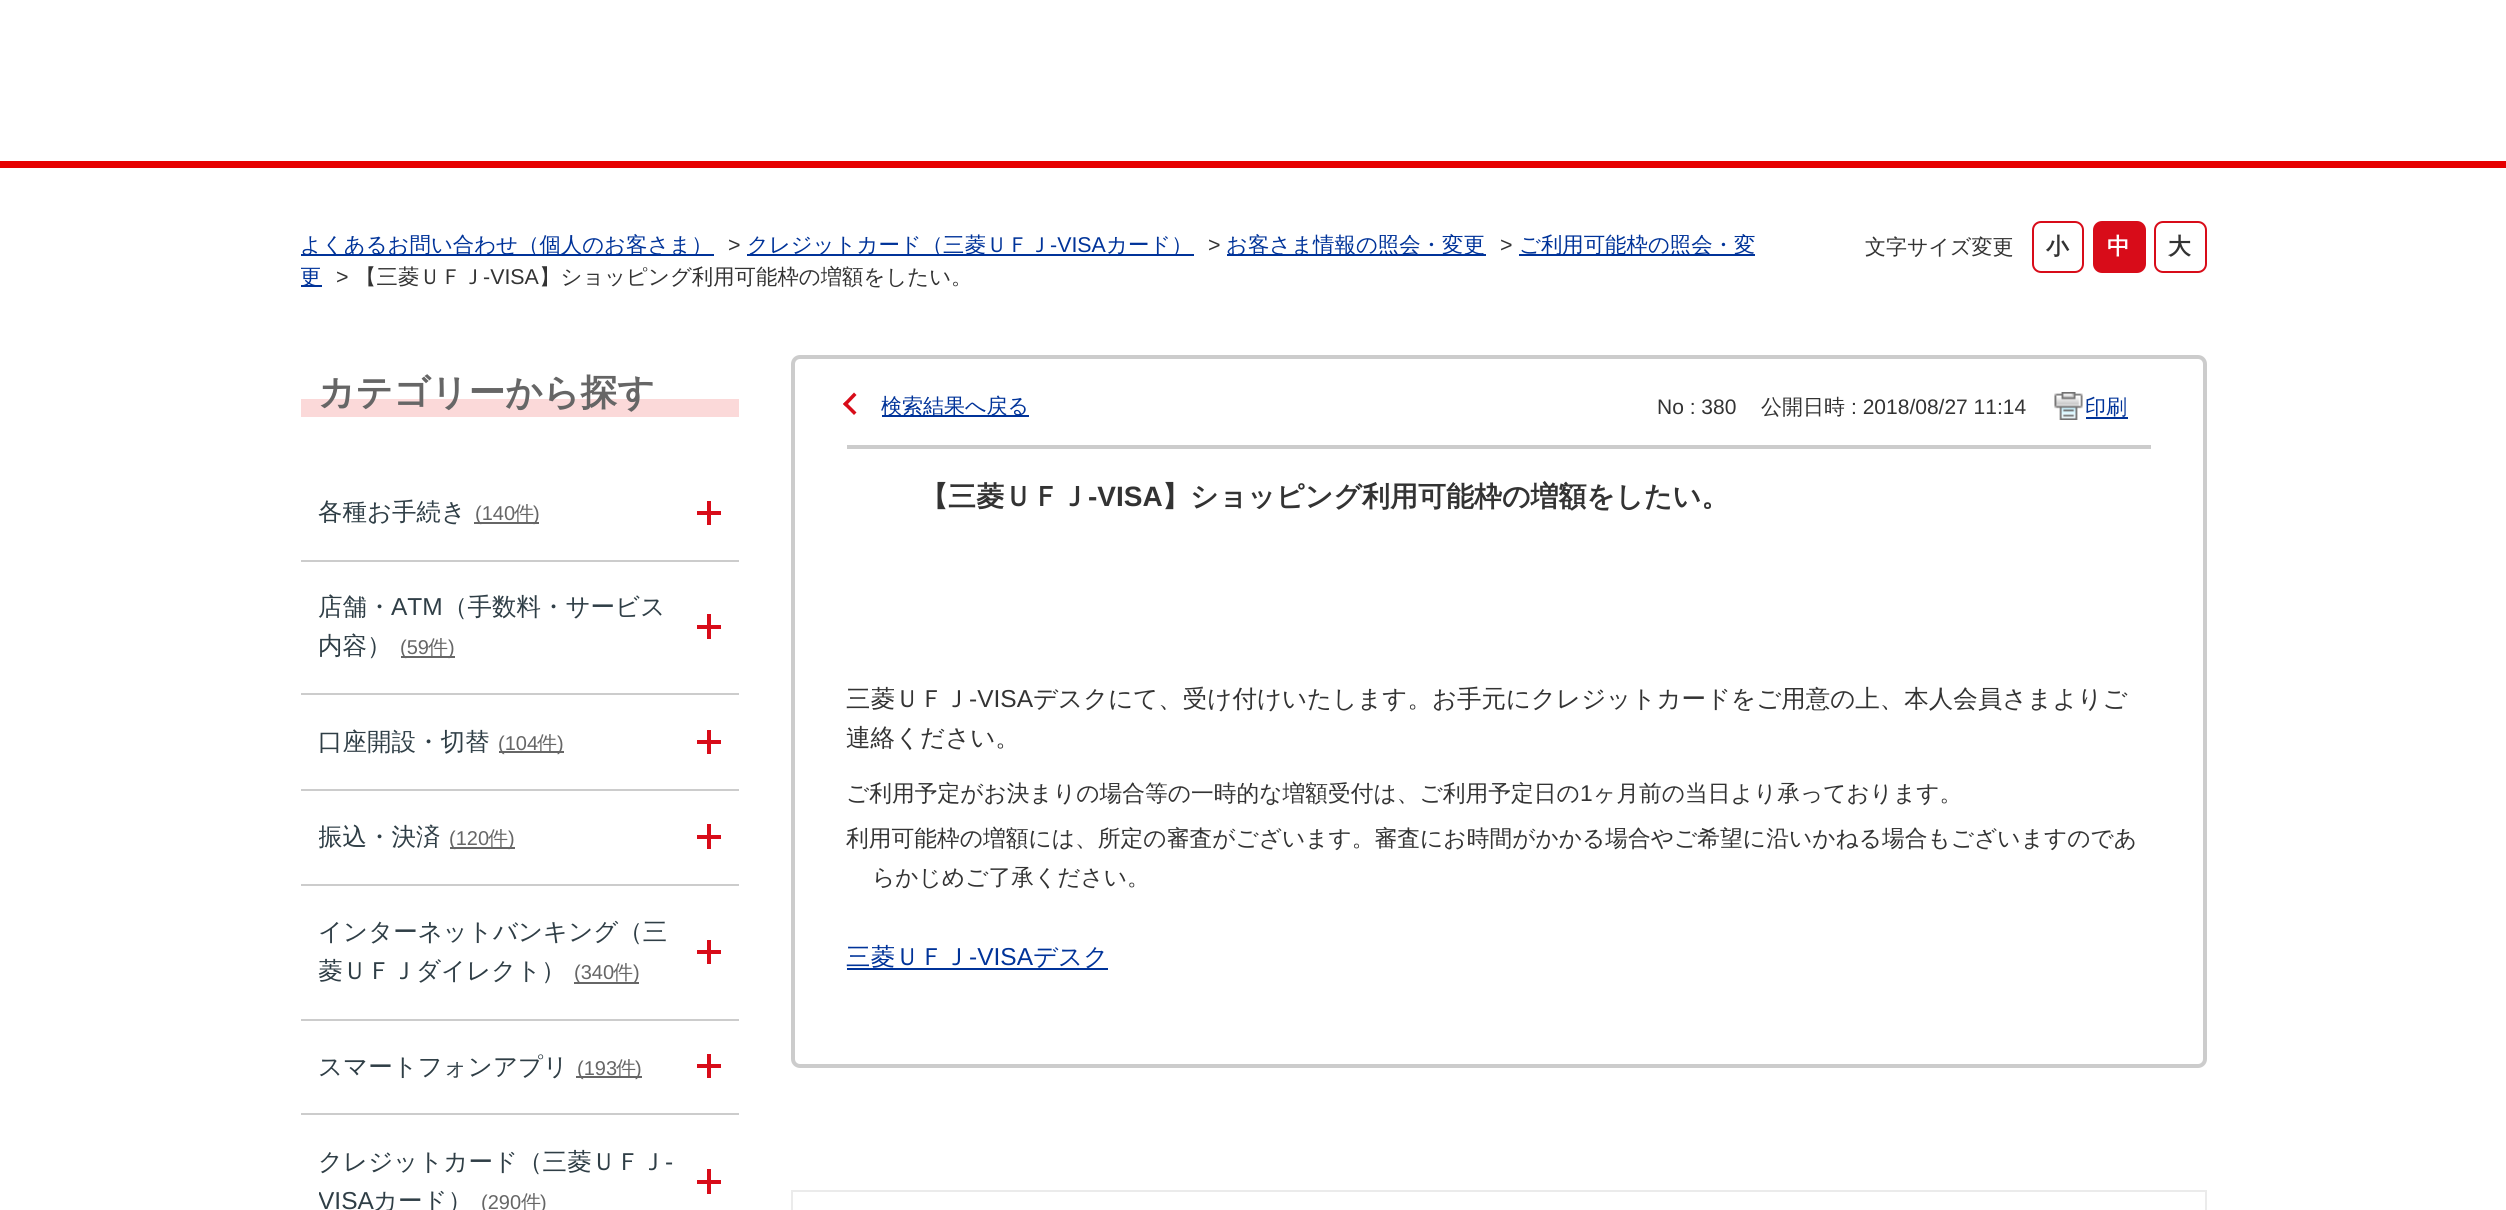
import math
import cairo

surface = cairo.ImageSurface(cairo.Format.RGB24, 2506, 1210)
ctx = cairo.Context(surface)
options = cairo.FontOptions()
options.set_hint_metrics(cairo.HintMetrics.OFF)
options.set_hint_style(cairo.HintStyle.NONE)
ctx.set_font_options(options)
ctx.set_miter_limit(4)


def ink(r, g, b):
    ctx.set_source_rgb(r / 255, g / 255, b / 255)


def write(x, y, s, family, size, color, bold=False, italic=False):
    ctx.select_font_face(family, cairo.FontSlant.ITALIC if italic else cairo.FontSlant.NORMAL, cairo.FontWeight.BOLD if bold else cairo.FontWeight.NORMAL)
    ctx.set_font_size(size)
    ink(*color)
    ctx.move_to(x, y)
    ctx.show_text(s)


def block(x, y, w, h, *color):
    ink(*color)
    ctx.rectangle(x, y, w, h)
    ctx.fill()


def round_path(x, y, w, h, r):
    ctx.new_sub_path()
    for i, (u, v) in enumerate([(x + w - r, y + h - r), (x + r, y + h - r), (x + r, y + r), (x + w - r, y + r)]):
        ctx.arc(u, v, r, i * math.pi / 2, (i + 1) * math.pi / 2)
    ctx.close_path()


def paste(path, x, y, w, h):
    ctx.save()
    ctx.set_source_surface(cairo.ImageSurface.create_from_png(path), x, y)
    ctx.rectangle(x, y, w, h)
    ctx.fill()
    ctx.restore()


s1 = dict(family="WenQuanYi Zen Hei Medium", size=21.4, color=(0, 51, 153))
s2 = dict(family="Liberation Sans", size=21.4, color=(51, 51, 51))
s3 = dict(family="Liberation Sans", size=21.4, color=(0, 51, 153))
s4 = dict(family="WenQuanYi Zen Hei Medium", size=21.4, color=(51, 51, 51))
s5 = dict(family="WenQuanYi Zen Hei Medium", size=21, color=(51, 51, 51))
s6 = dict(family="WenQuanYi Zen Hei", size=22.75, color=(51, 51, 51), bold=True)
s7 = dict(family="WenQuanYi Zen Hei", size=22.75, color=(255, 255, 255), bold=True)
s8 = dict(family="WenQuanYi Zen Hei", size=36.75, color=(102, 102, 102), bold=True)
s9 = dict(family="WenQuanYi Zen Hei Medium", size=24.5, color=(47, 62, 70))
s10 = dict(family="Liberation Sans", size=20, color=(102, 102, 102))
s11 = dict(family="WenQuanYi Zen Hei Medium", size=20, color=(102, 102, 102))
s12 = dict(family="Liberation Sans", size=24.5, color=(47, 62, 70))
s13 = dict(family="WenQuanYi Zen Hei Medium", size=21, color=(0, 51, 153))
s14 = dict(family="Liberation Sans", size=21, color=(51, 51, 51))
s15 = dict(family="WenQuanYi Zen Hei", size=28, color=(51, 51, 51), bold=True)
s16 = dict(family="Liberation Sans", size=28, color=(51, 51, 51), bold=True)
s17 = dict(family="WenQuanYi Zen Hei Medium", size=24.5, color=(51, 51, 51))
s18 = dict(family="Liberation Sans", size=24.5, color=(51, 51, 51))
s19 = dict(family="WenQuanYi Zen Hei Medium", size=22.75, color=(51, 51, 51))
s20 = dict(family="Liberation Sans", size=22.75, color=(51, 51, 51))
s21 = dict(family="WenQuanYi Zen Hei Medium", size=24.5, color=(0, 51, 153))
s22 = dict(family="Liberation Sans", size=24.5, color=(0, 51, 153))

ink(255, 255, 255)
ctx.paint()
block(0, 161, 2506, 7, 230, 0, 0)
block(301, 254, 413, 2, 0, 51, 153)
write(300, 252, "よくあるお問い合わせ（個人のお客さま）", **s1)
write(728, 252, ">", **s2)
block(747, 254, 447, 2, 0, 51, 153)
write(747, 252, "クレジットカード（三菱ＵＦＪ", **s1)
write(1050, 252, "-VISA", **s3)
write(1106, 252, "カード）", **s1)
write(1208, 252, ">", **s2)
block(1227, 254, 259, 2, 0, 51, 153)
write(1226, 252, "お客さま情報の照会・変更", **s1)
write(1500, 252, ">", **s2)
block(1519, 254, 236, 2, 0, 51, 153)
write(1519, 252, "ご利用可能枠の照会・変", **s1)
block(301, 285, 21, 2, 0, 51, 153)
write(300, 284, "更", **s1)
write(336, 284, ">", **s2)
write(355, 284, "【三菱ＵＦＪ", **s4)
write(483, 284, "-VISA", **s2)
write(539, 284, "】ショッピング利用可能枠の増額をしたい。", **s4)
write(1865, 254, "文字サイズ変更", **s5)
round_path(2033, 222, 50, 50, 8)
ink(216, 12, 25)
ctx.stroke()
write(2046, 254, "小", **s6)
ink(216, 12, 25)
round_path(2094, 222, 51, 50, 8)
ctx.fill_preserve()
ctx.stroke()
write(2107, 254, "中", **s7)
round_path(2155, 222, 51, 50, 8)
ink(216, 12, 25)
ctx.stroke()
write(2168, 254, "大", **s6)
block(301, 399, 438, 18, 251, 217, 217)
write(318, 405, "カテゴリーから探す", **s8)
write(318, 520, "各種お手続き", **s9)
block(474, 522, 65, 2, 102, 102, 102)
write(475, 520, "(140", **s10)
write(514, 520, "件", **s11)
write(533, 520, ")", **s10)
block(697, 511, 24, 4, 216, 12, 25)
block(707, 501, 4, 24, 216, 12, 25)
block(301, 560, 438, 2, 204, 204, 204)
write(318, 615, "店舗・", **s9)
write(391, 615, "ATM", **s12)
write(443, 615, "（手数料・サービス", **s9)
write(318, 654, "内容）", **s9)
block(401, 656, 54, 2, 102, 102, 102)
write(400, 654, "(59", **s10)
write(428, 654, "件", **s11)
write(448, 654, ")", **s10)
block(697, 625, 24, 4, 216, 12, 25)
block(707, 614, 4, 25, 216, 12, 25)
block(301, 693, 438, 2, 204, 204, 204)
write(318, 750, "口座開設・切替", **s9)
block(499, 751, 65, 2, 102, 102, 102)
write(498, 750, "(104", **s10)
write(537, 750, "件", **s11)
write(557, 750, ")", **s10)
block(697, 740, 24, 4, 216, 12, 25)
block(707, 730, 4, 24, 216, 12, 25)
block(301, 789, 438, 2, 204, 204, 204)
ctx.save()
ctx.rectangle(319, 817, 358, 41)
ctx.clip()
write(318, 845, "振込・決済", **s9)
ctx.restore()
block(450, 847, 65, 2, 102, 102, 102)
write(449, 845, "(120", **s10)
write(488, 845, "件", **s11)
write(508, 845, ")", **s10)
block(697, 835, 24, 4, 216, 12, 25)
block(707, 824, 4, 25, 216, 12, 25)
block(301, 884, 438, 2, 204, 204, 204)
write(318, 940, "インターネットバンキング（三", **s9)
write(318, 979, "菱ＵＦＪダイレクト）", **s9)
block(574, 982, 65, 2, 102, 102, 102)
write(574, 979, "(340", **s10)
write(613, 979, "件", **s11)
write(633, 979, ")", **s10)
block(697, 950, 24, 4, 216, 12, 25)
block(707, 940, 4, 24, 216, 12, 25)
block(301, 1019, 438, 2, 204, 204, 204)
write(318, 1075, "スマートフォンアプリ", **s9)
block(576, 1076, 66, 2, 102, 102, 102)
write(577, 1075, "(193", **s10)
write(616, 1075, "件", **s11)
write(635, 1075, ")", **s10)
block(697, 1064, 24, 4, 216, 12, 25)
block(707, 1054, 4, 24, 216, 12, 25)
block(301, 1113, 438, 2, 204, 204, 204)
write(318, 1170, "クレジットカード（三菱ＵＦＪ", **s9)
write(665, 1170, "-", **s12)
ctx.save()
ctx.rectangle(319, 1141, 358, 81)
ctx.clip()
write(318, 1209, "VISA", **s12)
ctx.restore()
write(373, 1209, "カード）", **s9)
write(481, 1209, "(290", **s10)
write(521, 1209, "件", **s11)
write(540, 1209, ")", **s10)
block(697, 1180, 24, 4, 216, 12, 25)
block(707, 1169, 4, 25, 216, 12, 25)
round_path(793, 357, 1412, 709, 7)
ink(204, 204, 204)
ctx.set_line_width(4)
ctx.stroke()
block(847, 445, 1304, 4, 204, 204, 204)
ink(216, 12, 25)
ctx.new_path()
ctx.move_to(843, 404)
ctx.line_to(854, 392.5)
ctx.line_to(856.5, 395)
ctx.line_to(845.5, 406.5)
ctx.close_path()
ctx.fill()
ctx.new_path()
ctx.move_to(843, 404)
ctx.line_to(845.5, 401.5)
ctx.line_to(856.5, 412.5)
ctx.line_to(854, 415)
ctx.close_path()
ctx.fill()
block(882, 415, 147, 2, 0, 51, 153)
write(881, 413, "検索結果へ戻る", **s13)
write(1657, 414, "No : 380", **s14)
write(1761, 414, "公開日時", **s5)
write(1851, 414, ": 2018/08/27 11:14", **s14)
paste("pic1.png", 2054, 392, 29, 28)
write(2085, 414, "印刷", **s13)
block(2086, 417, 42, 2, 0, 51, 153)
write(920, 506, "【三菱ＵＦＪ", **s15)
write(1088, 506, "-VISA", **s16)
write(1162, 506, "】ショッピング利用可能枠の増額をしたい。", **s15)
write(846, 707, "三菱ＵＦＪ", **s17)
write(969, 707, "-VISA", **s18)
write(1033, 707, "デスクにて、受け付けいたします。お手元にクレジットカードをご用意の上、本人会員さまよりご", **s17)
write(846, 746, "連絡ください。", **s17)
write(846, 801, "ご利用予定がお決まりの場合等の一時的な増額受付は、ご利用予定日の", **s19)
write(1580, 801, "1", **s20)
write(1593, 801, "ヶ月前の当日より承っております。", **s19)
write(846, 846, "利用可能枠の増額には、所定の審査がございます。審査にお時間がかかる場合やご希望に沿いかねる場合もございますのであ", **s19)
write(872, 885, "らかじめご了承ください。", **s19)
write(846, 965, "三菱ＵＦＪ", **s21)
write(969, 965, "-VISA", **s22)
block(847, 968, 261, 2, 0, 51, 153)
write(1033, 965, "デスク", **s21)
ctx.rectangle(792, 1191, 1414, 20)
ink(235, 235, 235)
ctx.set_line_width(2)
ctx.stroke()
surface.write_to_png("screenshot.png")
